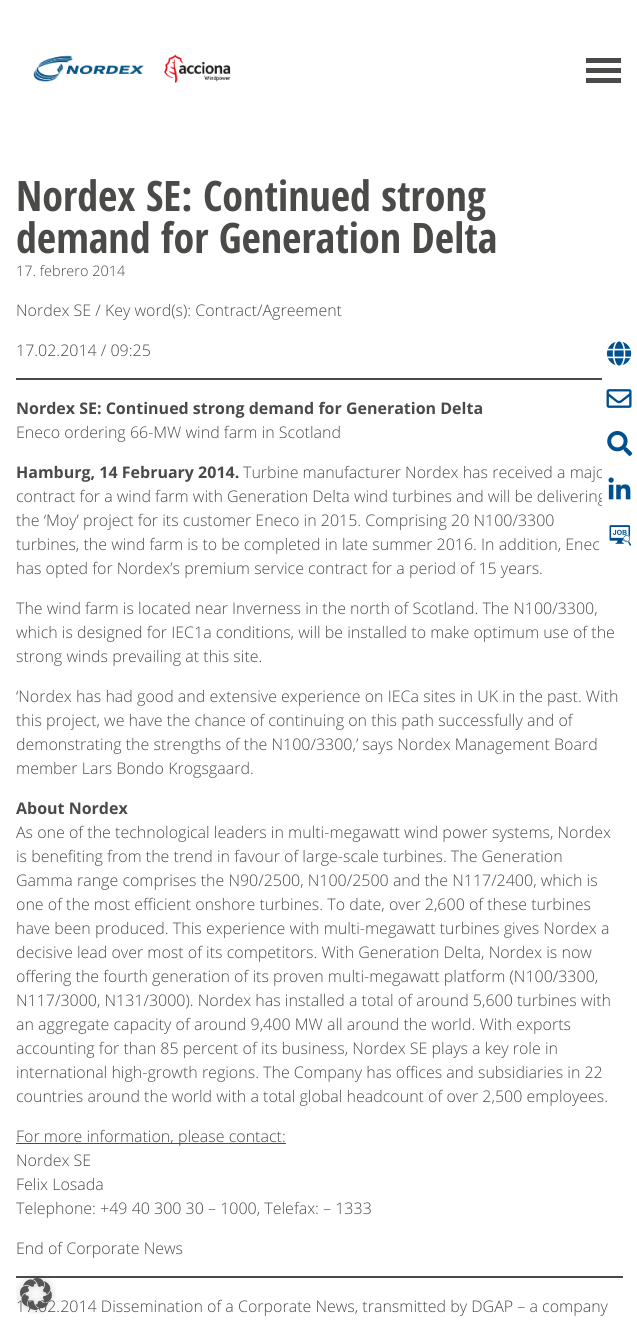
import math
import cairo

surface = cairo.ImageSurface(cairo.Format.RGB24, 637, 1330)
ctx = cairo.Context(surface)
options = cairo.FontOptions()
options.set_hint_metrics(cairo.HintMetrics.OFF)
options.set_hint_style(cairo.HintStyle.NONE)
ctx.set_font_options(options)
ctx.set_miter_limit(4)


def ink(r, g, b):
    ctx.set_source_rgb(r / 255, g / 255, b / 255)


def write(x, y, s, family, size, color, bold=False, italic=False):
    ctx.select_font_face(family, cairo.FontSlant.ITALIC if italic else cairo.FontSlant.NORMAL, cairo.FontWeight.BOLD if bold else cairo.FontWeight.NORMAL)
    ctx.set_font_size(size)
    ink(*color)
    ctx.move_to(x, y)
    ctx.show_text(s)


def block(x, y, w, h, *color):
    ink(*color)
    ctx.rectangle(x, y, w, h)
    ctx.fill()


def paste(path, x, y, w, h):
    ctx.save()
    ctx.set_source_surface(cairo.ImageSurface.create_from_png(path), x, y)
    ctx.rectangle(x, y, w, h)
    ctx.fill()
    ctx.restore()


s1 = dict(family="Open Sans Condensed", size=42, color=(74, 74, 73), bold=True)
s2 = dict(family="Open Sans Light", size=14.5, color=(74, 74, 73))
s3 = dict(family="Open Sans Light", size=16, color=(74, 74, 73))
s4 = dict(family="Open Sans", size=16, color=(74, 74, 73), bold=True)

ink(255, 255, 255)
ctx.paint()
paste("pic1.png", 33, 54, 198, 29)
block(586, 58, 35, 5, 74, 74, 73)
block(586, 68, 35, 5, 74, 74, 73)
block(586, 78, 35, 5, 74, 74, 73)
write(16, 211, "Nordex SE: Continued strong", **s1)
write(16, 253, "demand for Generation Delta", **s1)
write(16, 276, "17. febrero 2014", **s2)
write(16, 316, "Nordex SE / Key word(s): Contract/Agreement", **s3)
write(16, 356, "17.02.2014 / 09:25", **s3)
block(16, 378, 586, 2, 74, 74, 73)
write(16, 414, "Nordex SE: Continued strong demand for Generation Delta", **s4)
write(16, 438, "Eneco ordering 66-MW wind farm in Scotland", **s3)
write(16, 478, "Hamburg, 14 February 2014.", **s4)
write(243, 478, "Turbine manufacturer Nordex has received a majo", **s3)
write(16, 502, "contract for a wind farm with Generation Delta wind turbines and will be delivering", **s3)
write(16, 526, "the ‘Moy’ project for its customer Eneco in 2015. Comprising 20 N100/3300", **s3)
write(16, 550, "turbines, the wind farm is to be completed in late summer 2016. In addition, Enec", **s3)
write(16, 574, "has opted for Nordex’s premium service contract for a period of 15 years.", **s3)
write(16, 614, "The wind farm is located near Inverness in the north of Scotland. The N100/3300,", **s3)
write(16, 638, "which is designed for IEC1a conditions, will be installed to make optimum use of the", **s3)
write(16, 662, "strong winds prevailing at this site.", **s3)
write(16, 702, "‘Nordex has had good and extensive experience on IECa sites in UK in the past. With", **s3)
write(16, 726, "this project, we have the chance of continuing on this path successfully and of", **s3)
write(16, 750, "demonstrating the strengths of the N100/3300,’ says Nordex Management Board", **s3)
write(16, 774, "member Lars Bondo Krogsgaard.", **s3)
write(16, 814, "About Nordex", **s4)
write(16, 838, "As one of the technological leaders in multi-megawatt wind power systems, Nordex", **s3)
write(16, 862, "is benefiting from the trend in favour of large-scale turbines. The Generation", **s3)
write(16, 886, "Gamma range comprises the N90/2500, N100/2500 and the N117/2400, which is", **s3)
write(16, 910, "one of the most efficient onshore turbines. To date, over 2,600 of these turbines", **s3)
write(16, 934, "have been produced. This experience with multi-megawatt turbines gives Nordex a", **s3)
write(16, 958, "decisive lead over most of its competitors. With Generation Delta, Nordex is now", **s3)
write(16, 982, "offering the fourth generation of its proven multi-megawatt platform (N100/3300,", **s3)
write(16, 1006, "N117/3000, N131/3000). Nordex has installed a total of around 5,600 turbines with", **s3)
write(16, 1030, "an aggregate capacity of around 9,400 MW all around the world. With exports", **s3)
write(16, 1054, "accounting for than 85 percent of its business, Nordex SE plays a key role in", **s3)
write(16, 1078, "international high-growth regions. The Company has offices and subsidiaries in 22", **s3)
write(16, 1102, "countries around the world with a total global headcount of over 2,500 employees.", **s3)
block(16, 1143, 270, 1, 74, 74, 73)
write(16, 1142, "For more information, please contact:", **s3)
write(16, 1166, "Nordex SE", **s3)
write(16, 1190, "Felix Losada", **s3)
write(16, 1214, "Telephone: +49 40 300 30 – 1000, Telefax: – 1333", **s3)
write(16, 1254, "End of Corporate News", **s3)
block(16, 1276, 607, 2, 74, 74, 73)
write(16, 1312, "17.02.2014 Dissemination of a Corporate News, transmitted by DGAP – a company", **s3)
paste("pic2.png", 606, 341, 26, 25)
paste("pic3.png", 606, 389, 26, 19)
paste("pic4.png", 607, 431, 26, 25)
block(602, 469, 4, 37, 255, 255, 255)
paste("pic5.png", 608, 477, 23, 23)
paste("pic6.png", 609, 525, 23, 21)
paste("pic7.png", 16, 1274, 40, 40)
surface.write_to_png("screenshot.png")
